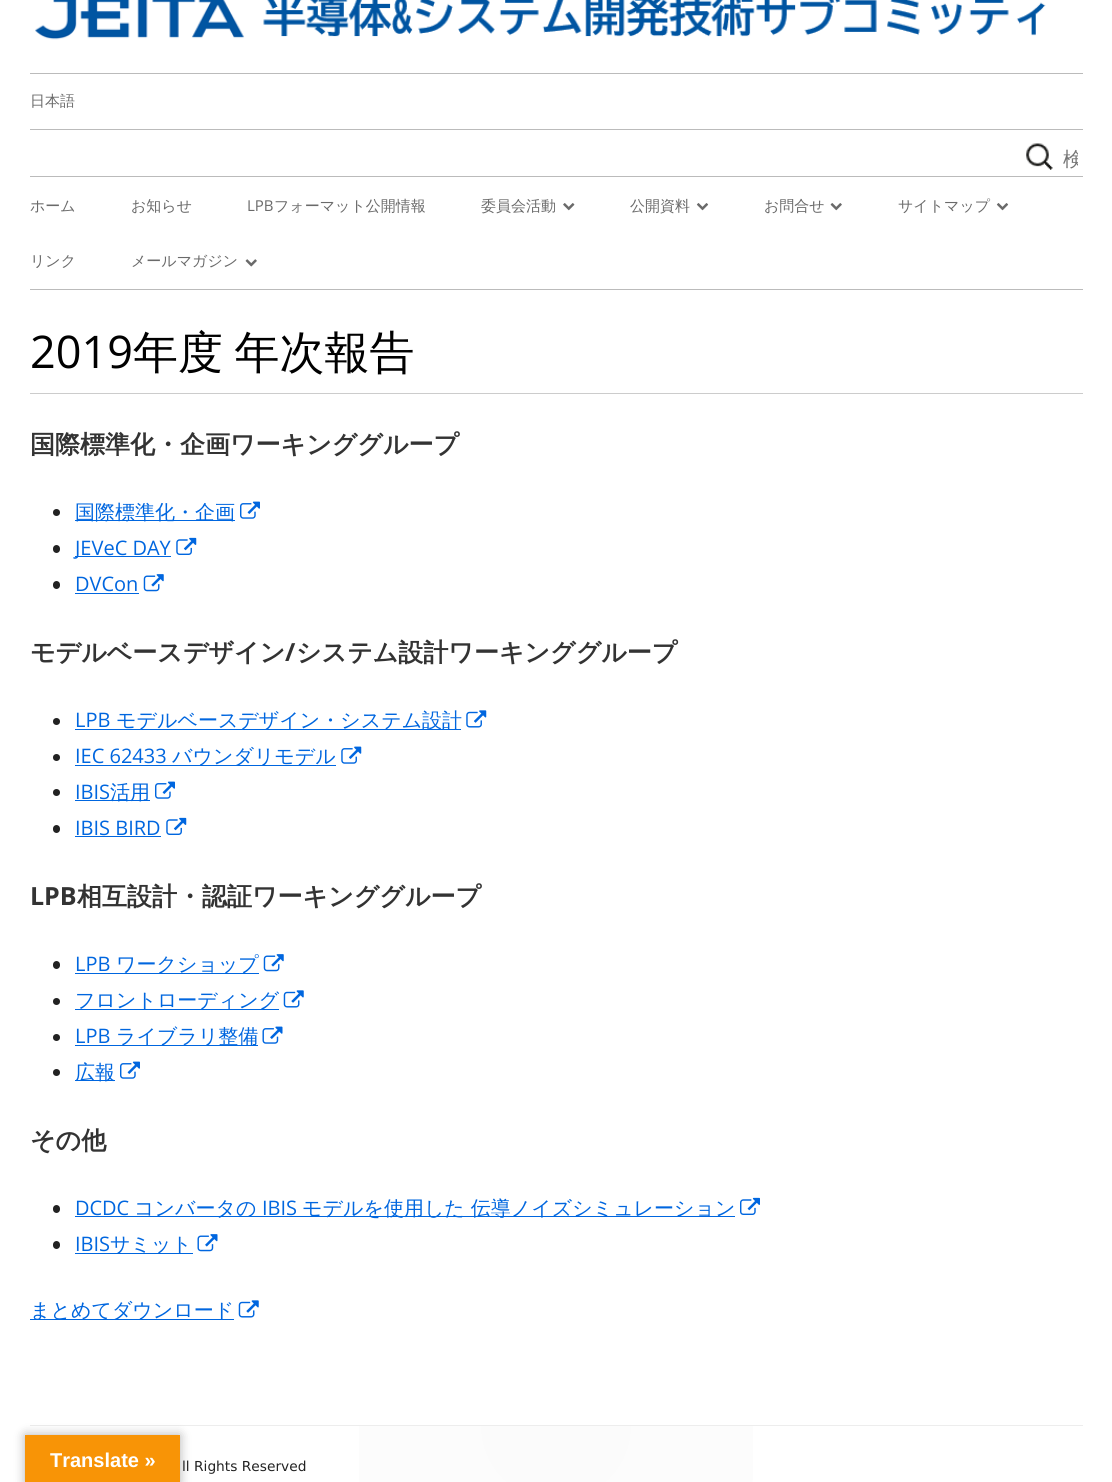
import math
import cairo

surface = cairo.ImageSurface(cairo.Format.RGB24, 1112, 1482)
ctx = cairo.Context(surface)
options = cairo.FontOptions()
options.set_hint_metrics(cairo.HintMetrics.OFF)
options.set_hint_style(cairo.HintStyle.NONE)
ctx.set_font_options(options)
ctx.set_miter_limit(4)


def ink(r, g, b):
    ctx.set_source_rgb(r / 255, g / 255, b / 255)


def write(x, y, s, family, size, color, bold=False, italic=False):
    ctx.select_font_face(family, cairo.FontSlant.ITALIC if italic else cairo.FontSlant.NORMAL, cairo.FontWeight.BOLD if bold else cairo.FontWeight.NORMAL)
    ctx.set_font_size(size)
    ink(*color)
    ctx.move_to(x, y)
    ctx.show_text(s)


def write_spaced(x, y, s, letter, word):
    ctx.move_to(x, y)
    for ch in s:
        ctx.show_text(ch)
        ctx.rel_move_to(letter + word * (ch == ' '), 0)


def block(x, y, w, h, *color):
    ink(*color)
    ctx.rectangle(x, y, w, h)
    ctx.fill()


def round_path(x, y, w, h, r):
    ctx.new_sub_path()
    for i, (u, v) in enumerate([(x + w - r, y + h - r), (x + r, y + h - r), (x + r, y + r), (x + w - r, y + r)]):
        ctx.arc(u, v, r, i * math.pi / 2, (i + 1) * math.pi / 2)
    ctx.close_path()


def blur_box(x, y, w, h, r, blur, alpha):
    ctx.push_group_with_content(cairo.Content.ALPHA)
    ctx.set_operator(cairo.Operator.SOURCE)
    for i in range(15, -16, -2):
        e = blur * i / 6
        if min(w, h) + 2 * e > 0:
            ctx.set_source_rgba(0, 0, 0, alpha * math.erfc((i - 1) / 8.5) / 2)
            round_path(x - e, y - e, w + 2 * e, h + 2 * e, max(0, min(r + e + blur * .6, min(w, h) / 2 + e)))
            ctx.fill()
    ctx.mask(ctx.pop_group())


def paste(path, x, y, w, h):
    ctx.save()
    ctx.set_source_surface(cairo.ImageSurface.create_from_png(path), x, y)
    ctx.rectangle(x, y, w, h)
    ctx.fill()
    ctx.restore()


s1 = dict(family="WenQuanYi Zen Hei Medium", size=15, color=(106, 106, 106))
s2 = dict(family="WenQuanYi Zen Hei Medium", size=20, color=(117, 117, 117))
s3 = dict(family="Open Sans", size=15, color=(106, 106, 106))
s4 = dict(family="Open Sans", size=45, color=(0, 0, 0))
s5 = dict(family="WenQuanYi Zen Hei", size=25, color=(51, 51, 51), bold=True)
s6 = dict(family="WenQuanYi Zen Hei Medium", size=20, color=(0, 102, 223))
s7 = dict(family="Open Sans", size=20, color=(0, 102, 223))
s8 = dict(family="Open Sans", size=25, color=(51, 51, 51), bold=True)
s9 = dict(family="DejaVu Sans", size=13.75, color=(34, 34, 34))
s10 = dict(family="Liberation Sans", size=20, color=(255, 255, 255), bold=True)

ink(255, 255, 255)
ctx.paint()
paste("pic1.png", 35, 0, 1011, 40)
block(30, 73, 1053, 1, 187, 187, 187)
block(30, 129, 1053, 1, 187, 187, 187)
write(30, 106, "日本語", **s1)
paste("pic2.png", 1026, 143, 27, 27)
ctx.save()
ctx.rectangle(1063, 144, 15, 29)
ctx.clip()
write(1063, 166, "検", **s2)
ctx.restore()
block(30, 176, 1053, 1, 187, 187, 187)
block(30, 289, 1053, 1, 187, 187, 187)
write(30, 211, "ホーム", **s1)
write(131, 211, "お知らせ", **s1)
write(247, 211, "LPB", **s3)
write(274, 211, "フォーマット公開情報", **s1)
write(481, 211, "委員会活動", **s1)
paste("pic3.png", 563, 203, 12, 8)
write(630, 211, "公開資料", **s1)
paste("pic4.png", 696, 203, 13, 8)
write(764, 211, "お問合せ", **s1)
paste("pic5.png", 830, 203, 12, 8)
write(898, 211, "サイトマップ", **s1)
paste("pic4.png", 996, 203, 13, 8)
write(30, 266, "リンク", **s1)
write(131, 266, "メールマガジン", **s1)
paste("pic6.png", 245, 259, 12, 8)
write(30, 368, "2019", **s4)
ctx.select_font_face("WenQuanYi Zen Hei Medium")
write_spaced(133, 368, "年度 年次報告", 0, -2)
block(30, 393, 1053, 1, 204, 204, 204)
write(30, 453, "国際標準化・企画ワーキンググループ", **s5)
ink(34, 34, 34)
ctx.new_path()
ctx.arc(56.5, 512.5, 3.5, 0, 2 * math.pi)
ctx.fill()
block(75, 520, 160, 1, 0, 102, 223)
write(75, 519, "国際標準化・企画", **s6)
paste("pic7.png", 240, 501, 20, 18)
ink(34, 34, 34)
round_path(53, 545, 7, 8, 3.5)
ctx.fill()
block(75, 556, 96, 1, 0, 102, 223)
write(75, 555, "JEVeC DAY", **s7)
paste("pic8.png", 176, 537, 21, 18)
ink(34, 34, 34)
round_path(53, 581, 7, 8, 3.5)
ctx.fill()
write(75, 591, "DVCon", **s7)
block(75, 593, 64, 1, 0, 102, 223)
paste("pic9.png", 143, 574, 21, 18)
write(30, 661, "モデルベースデザイン", **s5)
write(285, 661, "/", **s8)
write(296, 661, "システム設計ワーキンググループ", **s5)
ink(34, 34, 34)
ctx.new_path()
ctx.arc(56.5, 721.5, 3.5, 0, 2 * math.pi)
ctx.fill()
write(75, 727, "LPB", **s7)
block(75, 729, 386, 1, 0, 102, 223)
write(116, 727, "モデルベースデザイン・システム設計", **s6)
paste("pic10.png", 466, 710, 21, 18)
ink(34, 34, 34)
ctx.arc(56.5, 757.5, 3.5, 0, 2 * math.pi)
ctx.fill()
write(75, 763, "IEC 62433", **s7)
block(75, 765, 261, 1, 0, 102, 223)
write(172, 763, "バウンダリモデル", **s6)
paste("pic11.png", 341, 746, 21, 18)
ink(34, 34, 34)
ctx.arc(56.5, 792.5, 3.5, 0, 2 * math.pi)
ctx.fill()
write(75, 799, "IBIS", **s7)
block(75, 800, 75, 1, 0, 102, 223)
write(110, 799, "活用", **s6)
paste("pic7.png", 155, 781, 20, 18)
ink(34, 34, 34)
round_path(53, 825, 7, 8, 3.5)
ctx.fill()
write(75, 835, "IBIS BIRD", **s7)
block(75, 836, 86, 1, 0, 102, 223)
paste("pic8.png", 166, 817, 21, 18)
write(30, 905, "LPB", **s8)
write(77, 905, "相互設計・認証ワーキンググループ", **s5)
ink(34, 34, 34)
round_path(53, 961, 7, 8, 3.5)
ctx.fill()
write(75, 971, "LPB", **s7)
block(75, 973, 184, 1, 0, 102, 223)
write(116, 971, "ワークショップ", **s6)
paste("pic9.png", 263, 954, 21, 18)
ink(34, 34, 34)
ctx.arc(56.5, 1001.5, 3.5, 0, 2 * math.pi)
ctx.fill()
block(75, 1009, 204, 1, 0, 102, 223)
write(75, 1007, "フロントローディング", **s6)
paste("pic12.png", 283, 990, 21, 18)
ink(34, 34, 34)
ctx.arc(56.5, 1037.5, 3.5, 0, 2 * math.pi)
ctx.fill()
write(75, 1043, "LPB", **s7)
block(75, 1045, 183, 1, 0, 102, 223)
write(116, 1043, "ライブラリ整備", **s6)
paste("pic13.png", 262, 1026, 21, 18)
ink(34, 34, 34)
ctx.arc(56.5, 1072.5, 3.5, 0, 2 * math.pi)
ctx.fill()
block(75, 1080, 40, 1, 0, 102, 223)
write(75, 1079, "広報", **s6)
paste("pic7.png", 120, 1061, 20, 18)
write(30, 1149, "その他", **s5)
ink(34, 34, 34)
round_path(53, 1205, 7, 8, 3.5)
ctx.fill()
write(75, 1215, "DCDC", **s7)
block(75, 1216, 660, 1, 0, 102, 223)
write(134, 1215, "コンバータの", **s6)
write(262, 1215, "IBIS", **s7)
write(302, 1215, "モデルを使用した 伝導ノイズシミュレーション", **s6)
paste("pic14.png", 740, 1197, 20, 18)
ink(34, 34, 34)
round_path(53, 1241, 7, 8, 3.5)
ctx.fill()
write(75, 1251, "IBIS", **s7)
block(75, 1253, 118, 1, 0, 102, 223)
write(110, 1251, "サミット", **s6)
paste("pic15.png", 197, 1234, 21, 18)
block(30, 1319, 204, 1, 0, 102, 223)
write(30, 1317, "まとめてダウンロード", **s6)
paste("pic12.png", 238, 1300, 21, 18)
gradient = cairo.RadialGradient(556, 1426, 0, 556, 1426, 526)
gradient.add_color_stop_rgba(0, 0.984, 0.984, 0.984, 1)
gradient.add_color_stop_rgba(1, 1, 1, 1, 1)
ctx.set_source(gradient)
ctx.rectangle(359, 1426, 394, 56)
ctx.fill()
block(30, 1425, 1053, 1, 237, 237, 237)
write(182, 1471, "ll Rights Reserved", **s9)
ink(0, 0, 0)
blur_box(25, 1435, 155, 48, 0, 5.5, 0.3)
block(25, 1435, 155, 47, 248, 148, 6)
write(50, 1467, "Translate »", **s10)
surface.write_to_png("screenshot.png")
